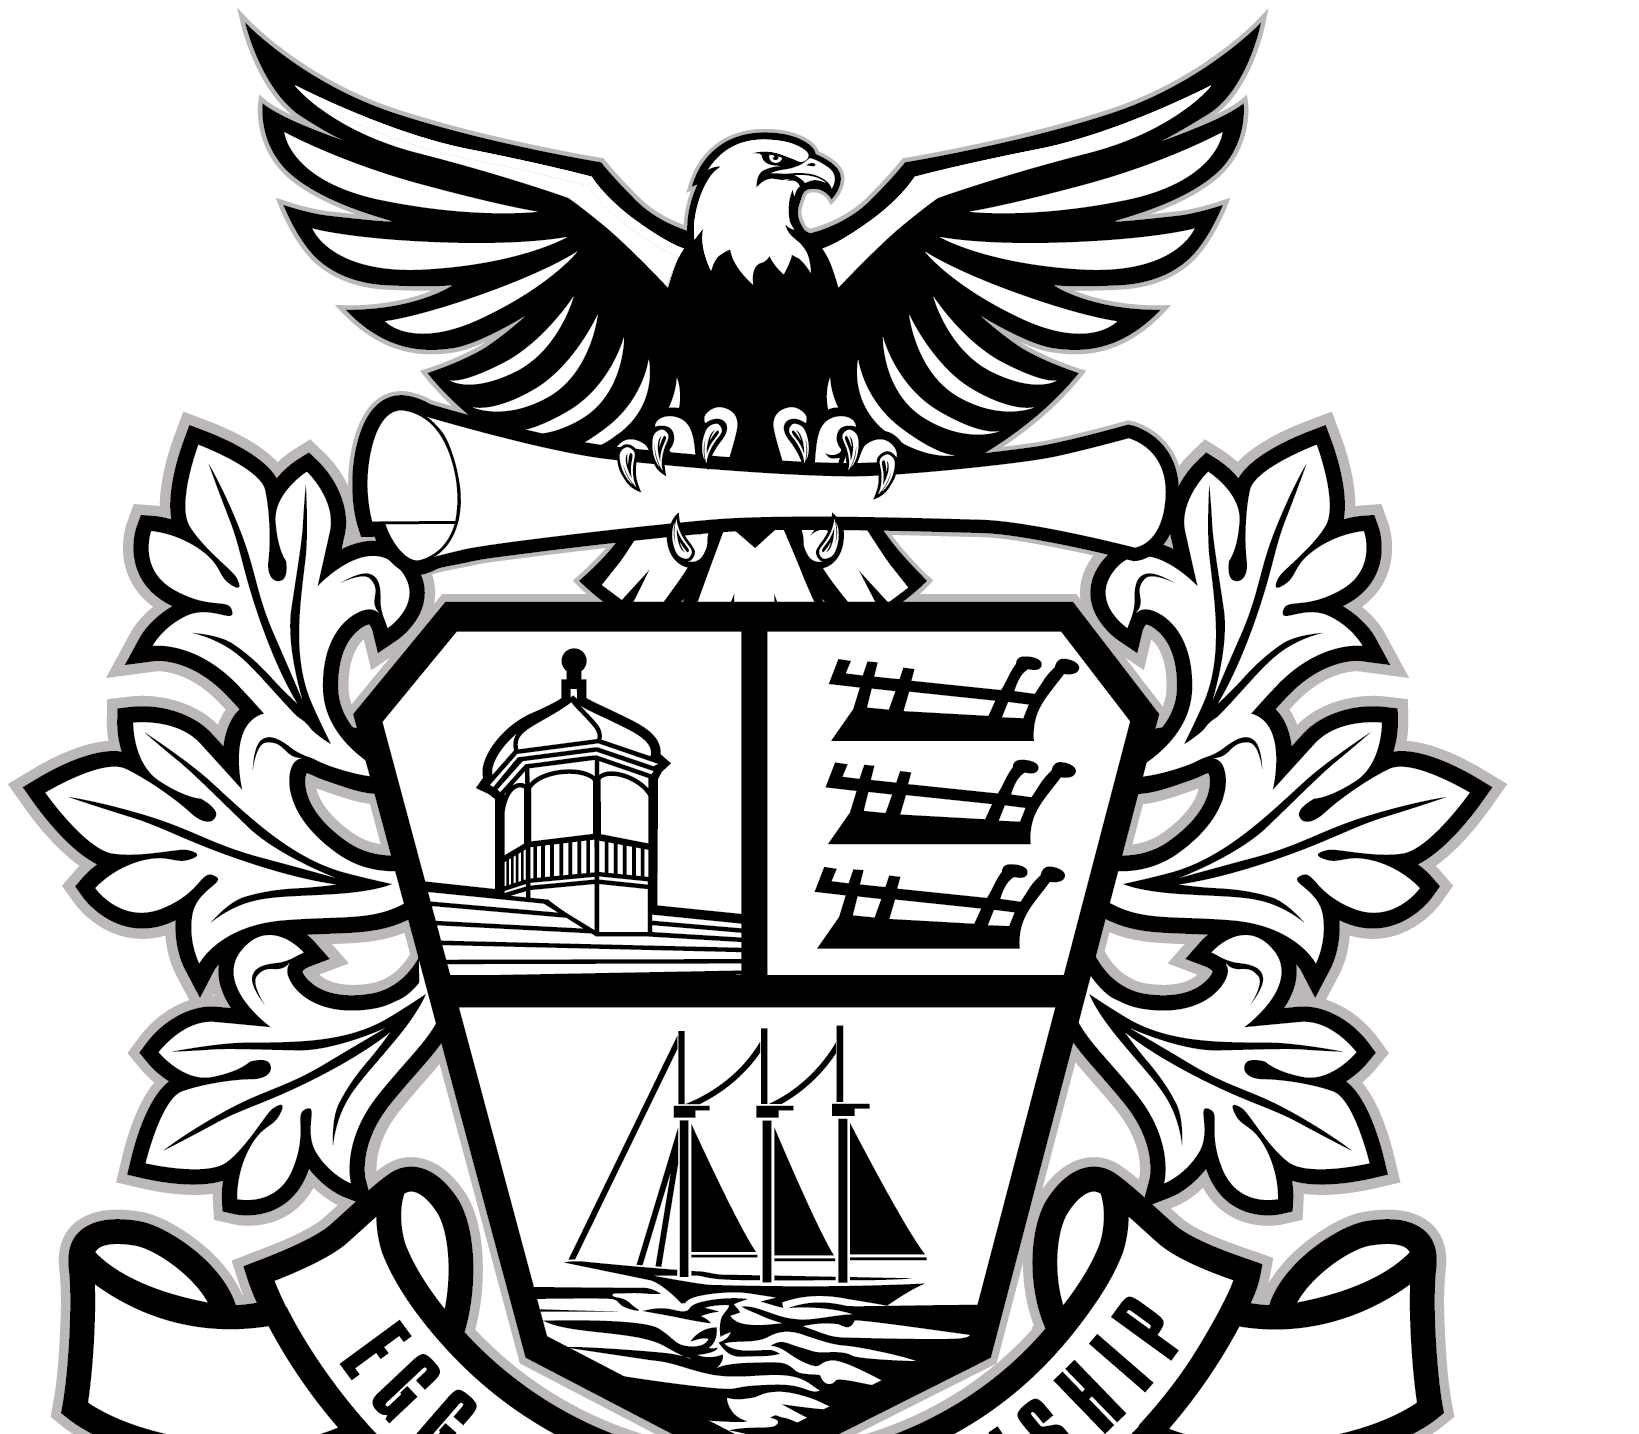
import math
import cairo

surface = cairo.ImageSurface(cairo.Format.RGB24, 1639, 1434)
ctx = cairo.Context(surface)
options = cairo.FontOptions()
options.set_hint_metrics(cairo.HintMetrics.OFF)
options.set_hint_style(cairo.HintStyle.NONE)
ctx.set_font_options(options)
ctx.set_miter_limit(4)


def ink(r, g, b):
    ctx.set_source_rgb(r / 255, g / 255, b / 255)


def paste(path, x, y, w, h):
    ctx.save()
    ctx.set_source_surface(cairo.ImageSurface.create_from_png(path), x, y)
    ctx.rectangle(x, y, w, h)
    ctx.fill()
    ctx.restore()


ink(255, 255, 255)
ctx.paint()
paste("pic1.png", 8, 8, 1499, 1426)
surface.write_to_png("screenshot.png")
